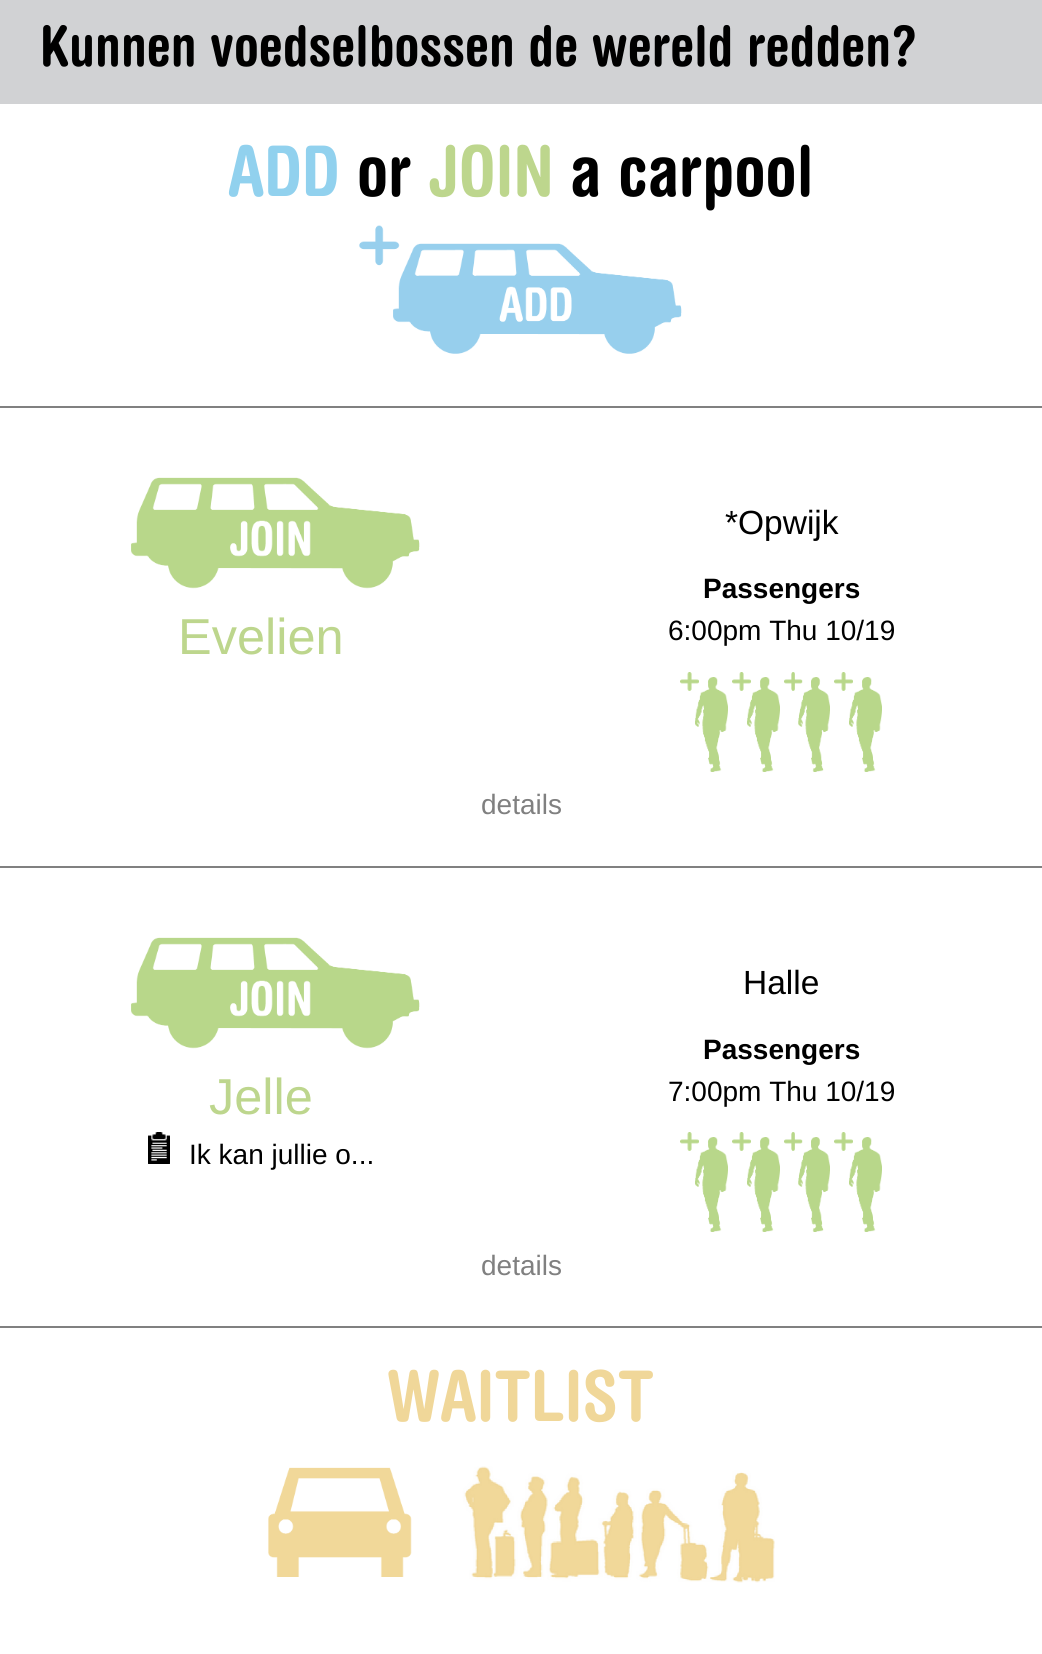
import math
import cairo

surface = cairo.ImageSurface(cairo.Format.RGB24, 1042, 1654)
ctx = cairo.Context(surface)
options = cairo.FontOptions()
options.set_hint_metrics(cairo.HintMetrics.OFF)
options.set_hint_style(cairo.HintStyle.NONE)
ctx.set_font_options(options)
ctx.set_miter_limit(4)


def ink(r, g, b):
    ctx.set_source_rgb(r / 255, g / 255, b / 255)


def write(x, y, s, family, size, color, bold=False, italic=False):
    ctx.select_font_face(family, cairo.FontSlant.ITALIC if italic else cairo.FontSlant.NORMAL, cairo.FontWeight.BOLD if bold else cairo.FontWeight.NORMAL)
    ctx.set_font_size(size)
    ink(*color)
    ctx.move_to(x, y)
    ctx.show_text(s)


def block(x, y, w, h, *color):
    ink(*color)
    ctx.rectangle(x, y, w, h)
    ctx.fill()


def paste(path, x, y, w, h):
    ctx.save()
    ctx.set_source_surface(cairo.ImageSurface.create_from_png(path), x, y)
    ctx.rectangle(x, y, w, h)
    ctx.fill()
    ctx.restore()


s1 = dict(family="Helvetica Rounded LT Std", size=56, color=(0, 0, 0), bold=True)
s2 = dict(family="Helvetica Rounded LT Std", size=70, color=(145, 209, 238), bold=True)
s3 = dict(family="Helvetica Rounded LT Std", size=70, color=(0, 0, 0), bold=True)
s4 = dict(family="Helvetica Rounded LT Std", size=70, color=(189, 214, 141), bold=True)
s5 = dict(family="Liberation Sans", size=33.5, color=(0, 0, 0))
s6 = dict(family="Liberation Sans", size=50.5, color=(189, 214, 141))
s7 = dict(family="Liberation Sans", size=28, color=(0, 0, 0), bold=True)
s8 = dict(family="Liberation Sans", size=28, color=(0, 0, 0))
s9 = dict(family="Liberation Sans", size=28, color=(128, 128, 128))
s10 = dict(family="Helvetica Rounded LT Std", size=70, color=(240, 215, 153), bold=True)

ink(255, 255, 255)
ctx.paint()
block(0, 0, 1042, 104, 209, 210, 212)
write(40, 66, "Kunnen voedselbossen de wereld redden?", **s1)
write(228, 196, "ADD", **s2)
write(357, 196, "or", **s3)
write(428, 196, "JOIN", **s4)
write(570, 196, "a carpool", **s3)
block(0, 406, 1042, 2, 128, 128, 128)
paste("pic1.png", 359, 225, 323, 129)
block(0, 866, 1042, 2, 128, 128, 128)
write(725, 534, "*Opwijk", **s5)
paste("pic2.png", 131, 477, 289, 112)
write(178, 654, "Evelien", **s6)
write(703, 598, "Passengers", **s7)
write(668, 640, "6:00pm Thu 10/19", **s8)
paste("pic3.png", 680, 672, 48, 100)
paste("pic4.png", 732, 672, 48, 100)
paste("pic5.png", 784, 672, 46, 100)
paste("pic3.png", 834, 672, 48, 100)
write(481, 814, "details", **s9)
block(0, 1326, 1042, 2, 128, 128, 128)
write(743, 994, "Halle", **s5)
paste("pic2.png", 131, 937, 289, 112)
write(209, 1114, "Jelle", **s6)
paste("pic6.png", 148, 1132, 22, 32)
write(189, 1164, "Ik kan jullie o...", **s8)
write(703, 1059, "Passengers", **s7)
write(668, 1101, "7:00pm Thu 10/19", **s8)
paste("pic3.png", 680, 1132, 48, 100)
paste("pic4.png", 732, 1132, 48, 100)
paste("pic5.png", 784, 1132, 46, 100)
paste("pic3.png", 834, 1132, 48, 100)
write(481, 1275, "details", **s9)
write(387, 1421, "WAITLIST", **s10)
paste("pic7.png", 268, 1466, 507, 117)
surface.write_to_png("screenshot.png")
